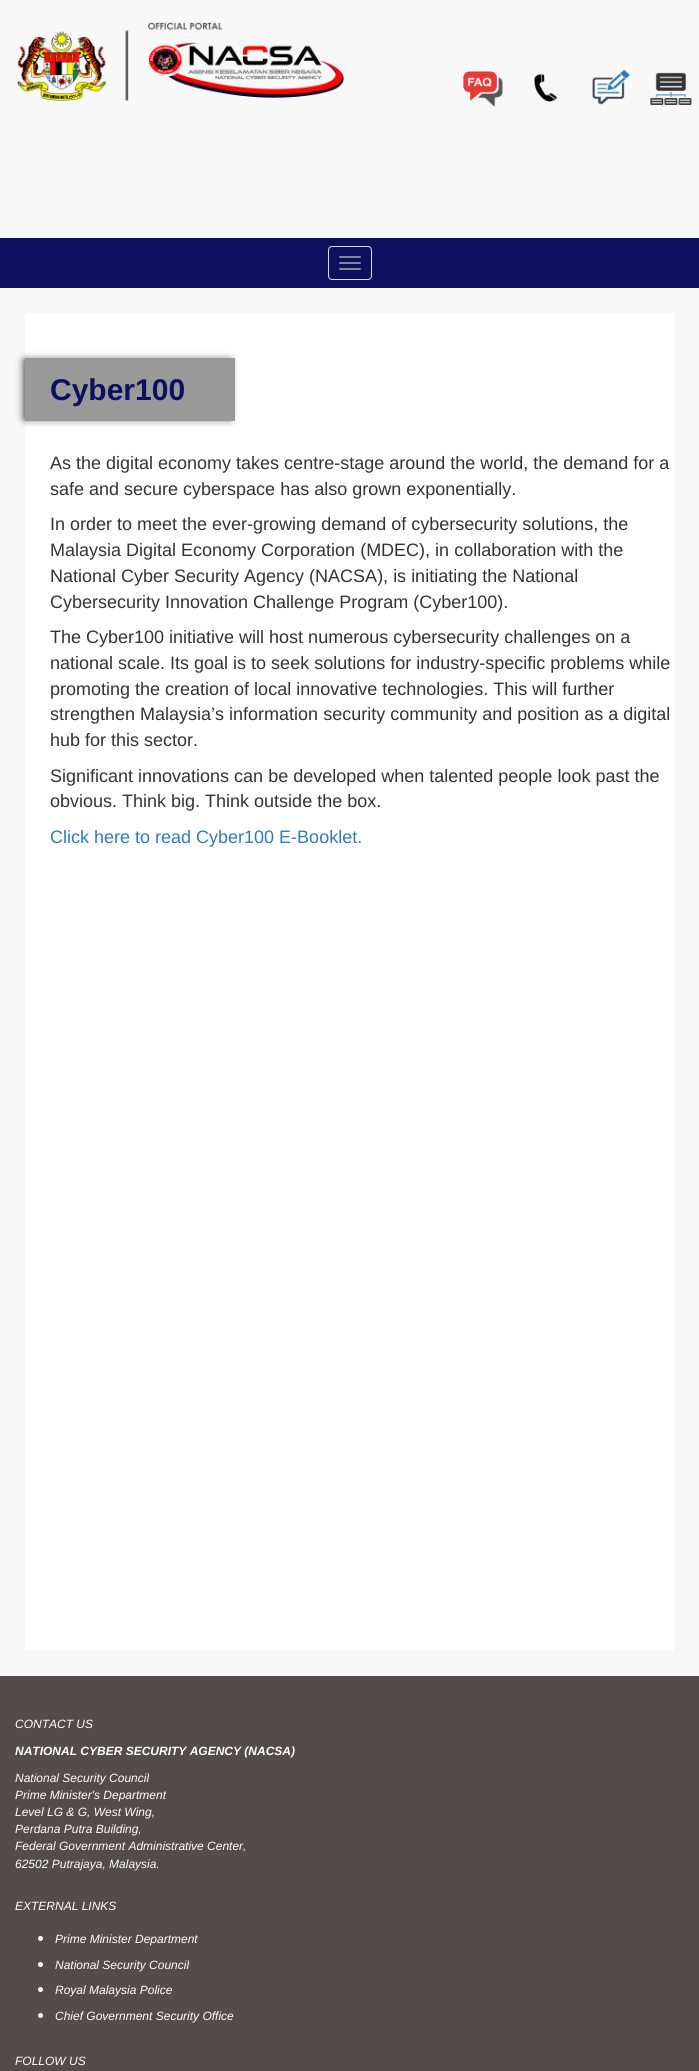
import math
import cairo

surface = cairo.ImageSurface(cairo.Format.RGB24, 699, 2071)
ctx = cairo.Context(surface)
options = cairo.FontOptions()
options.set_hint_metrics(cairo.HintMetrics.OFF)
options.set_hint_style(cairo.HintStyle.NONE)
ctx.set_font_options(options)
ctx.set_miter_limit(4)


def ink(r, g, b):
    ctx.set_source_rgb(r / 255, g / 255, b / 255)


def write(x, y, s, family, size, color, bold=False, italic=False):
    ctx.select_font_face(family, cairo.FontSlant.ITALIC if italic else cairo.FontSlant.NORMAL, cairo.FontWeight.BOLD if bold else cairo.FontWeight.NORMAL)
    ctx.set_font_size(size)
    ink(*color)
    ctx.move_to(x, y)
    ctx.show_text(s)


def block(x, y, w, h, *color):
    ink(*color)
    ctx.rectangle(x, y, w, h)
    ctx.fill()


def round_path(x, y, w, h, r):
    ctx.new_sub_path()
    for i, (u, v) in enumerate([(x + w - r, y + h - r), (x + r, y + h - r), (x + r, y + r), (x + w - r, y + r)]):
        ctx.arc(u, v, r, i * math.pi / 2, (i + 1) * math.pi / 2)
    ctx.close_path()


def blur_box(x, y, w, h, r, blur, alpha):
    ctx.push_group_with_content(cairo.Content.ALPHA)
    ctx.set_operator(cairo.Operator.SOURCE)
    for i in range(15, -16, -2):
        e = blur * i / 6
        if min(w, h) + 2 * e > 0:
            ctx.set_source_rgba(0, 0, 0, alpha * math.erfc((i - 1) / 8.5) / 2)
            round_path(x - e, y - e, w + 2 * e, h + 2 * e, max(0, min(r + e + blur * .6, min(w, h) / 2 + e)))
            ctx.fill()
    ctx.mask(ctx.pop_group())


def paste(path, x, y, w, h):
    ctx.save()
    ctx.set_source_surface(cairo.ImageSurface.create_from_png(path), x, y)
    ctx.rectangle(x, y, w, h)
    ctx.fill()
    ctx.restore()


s1 = dict(family="Liberation Sans", size=30, color=(13, 15, 95), bold=True)
s2 = dict(family="Liberation Sans", size=18, color=(51, 51, 51))
s3 = dict(family="Liberation Sans", size=18, color=(51, 122, 183))
s4 = dict(family="Liberation Sans", size=12, color=(255, 255, 255), italic=True)
s5 = dict(family="Liberation Sans", size=12, color=(255, 255, 255), bold=True, italic=True)

ink(248, 248, 248)
ctx.paint()
paste("pic1.png", 17, 22, 327, 79)
paste("pic2.png", 463, 71, 40, 36)
paste("pic3.png", 534, 74, 24, 28)
paste("pic4.png", 592, 69, 38, 36)
paste("pic5.png", 650, 72, 42, 33)
block(0, 238, 699, 50, 13, 15, 95)
round_path(328.5, 246.5, 43, 33, 3.5)
ink(221, 221, 221)
ctx.set_line_width(1)
ctx.stroke()
ink(136, 136, 136)
round_path(339, 256, 22, 2, 1)
ctx.fill()
round_path(339, 262, 22, 2, 1)
ctx.fill()
round_path(339, 268, 22, 2, 1)
ctx.fill()
block(25, 313, 649, 1338, 255, 255, 255)
ink(51, 51, 51)
blur_box(24, 360, 206, 59, 0, 4, 1)
block(25, 358, 210, 63, 153, 153, 153)
write(50, 400, "Cyber100", **s1)
write(50, 469, "As the digital economy takes centre-stage around the world, the demand for a", **s2)
write(50, 495, "safe and secure cyberspace has also grown exponentially.", **s2)
write(50, 530, "In order to meet the ever-growing demand of cybersecurity solutions, the", **s2)
write(50, 556, "Malaysia Digital Economy Corporation (MDEC), in collaboration with the", **s2)
write(50, 582, "National Cyber Security Agency (NACSA), is initiating the National", **s2)
write(50, 608, "Cybersecurity Innovation Challenge Program (Cyber100).", **s2)
write(50, 643, "The Cyber100 initiative will host numerous cybersecurity challenges on a", **s2)
write(50, 669, "national scale. Its goal is to seek solutions for industry-specific problems while", **s2)
write(50, 695, "promoting the creation of local innovative technologies. This will further", **s2)
write(50, 720, "strengthen Malaysia’s information security community and position as a digital", **s2)
write(50, 746, "hub for this sector.", **s2)
write(50, 782, "Significant innovations can be developed when talented people look past the", **s2)
write(50, 807, "obvious. Think big. Think outside the box.", **s2)
write(50, 843, "Click here to read Cyber100 E-Booklet.", **s3)
block(0, 1676, 699, 395, 83, 76, 75)
write(15, 1728, "CONTACT US", **s4)
write(15, 1755, "NATIONAL CYBER SECURITY AGENCY (NACSA)", **s5)
write(15, 1782, "National Security Council", **s4)
write(15, 1799, "Prime Minister's Department", **s4)
write(15, 1816, "Level LG & G, West Wing,", **s4)
write(15, 1833, "Perdana Putra Building,", **s4)
write(15, 1850, "Federal Government Administrative Center,", **s4)
write(15, 1868, "62502 Putrajaya, Malaysia.", **s4)
write(15, 1910, "EXTERNAL LINKS", **s4)
ctx.new_path()
ctx.arc(40.5, 1938.5, 2.5, 0, 2 * math.pi)
ctx.fill()
write(55, 1943, "Prime Minister Department", **s4)
ctx.new_path()
ctx.arc(40.5, 1964.5, 2.5, 0, 2 * math.pi)
ctx.fill()
write(55, 1969, "National Security Council", **s4)
ctx.new_path()
ctx.arc(40.5, 1989.5, 2.5, 0, 2 * math.pi)
ctx.fill()
write(55, 1994, "Royal Malaysia Police", **s4)
ctx.new_path()
ctx.arc(40.5, 2015.5, 2.5, 0, 2 * math.pi)
ctx.fill()
write(55, 2020, "Chief Government Security Office", **s4)
write(15, 2065, "FOLLOW US", **s4)
surface.write_to_png("screenshot.png")
